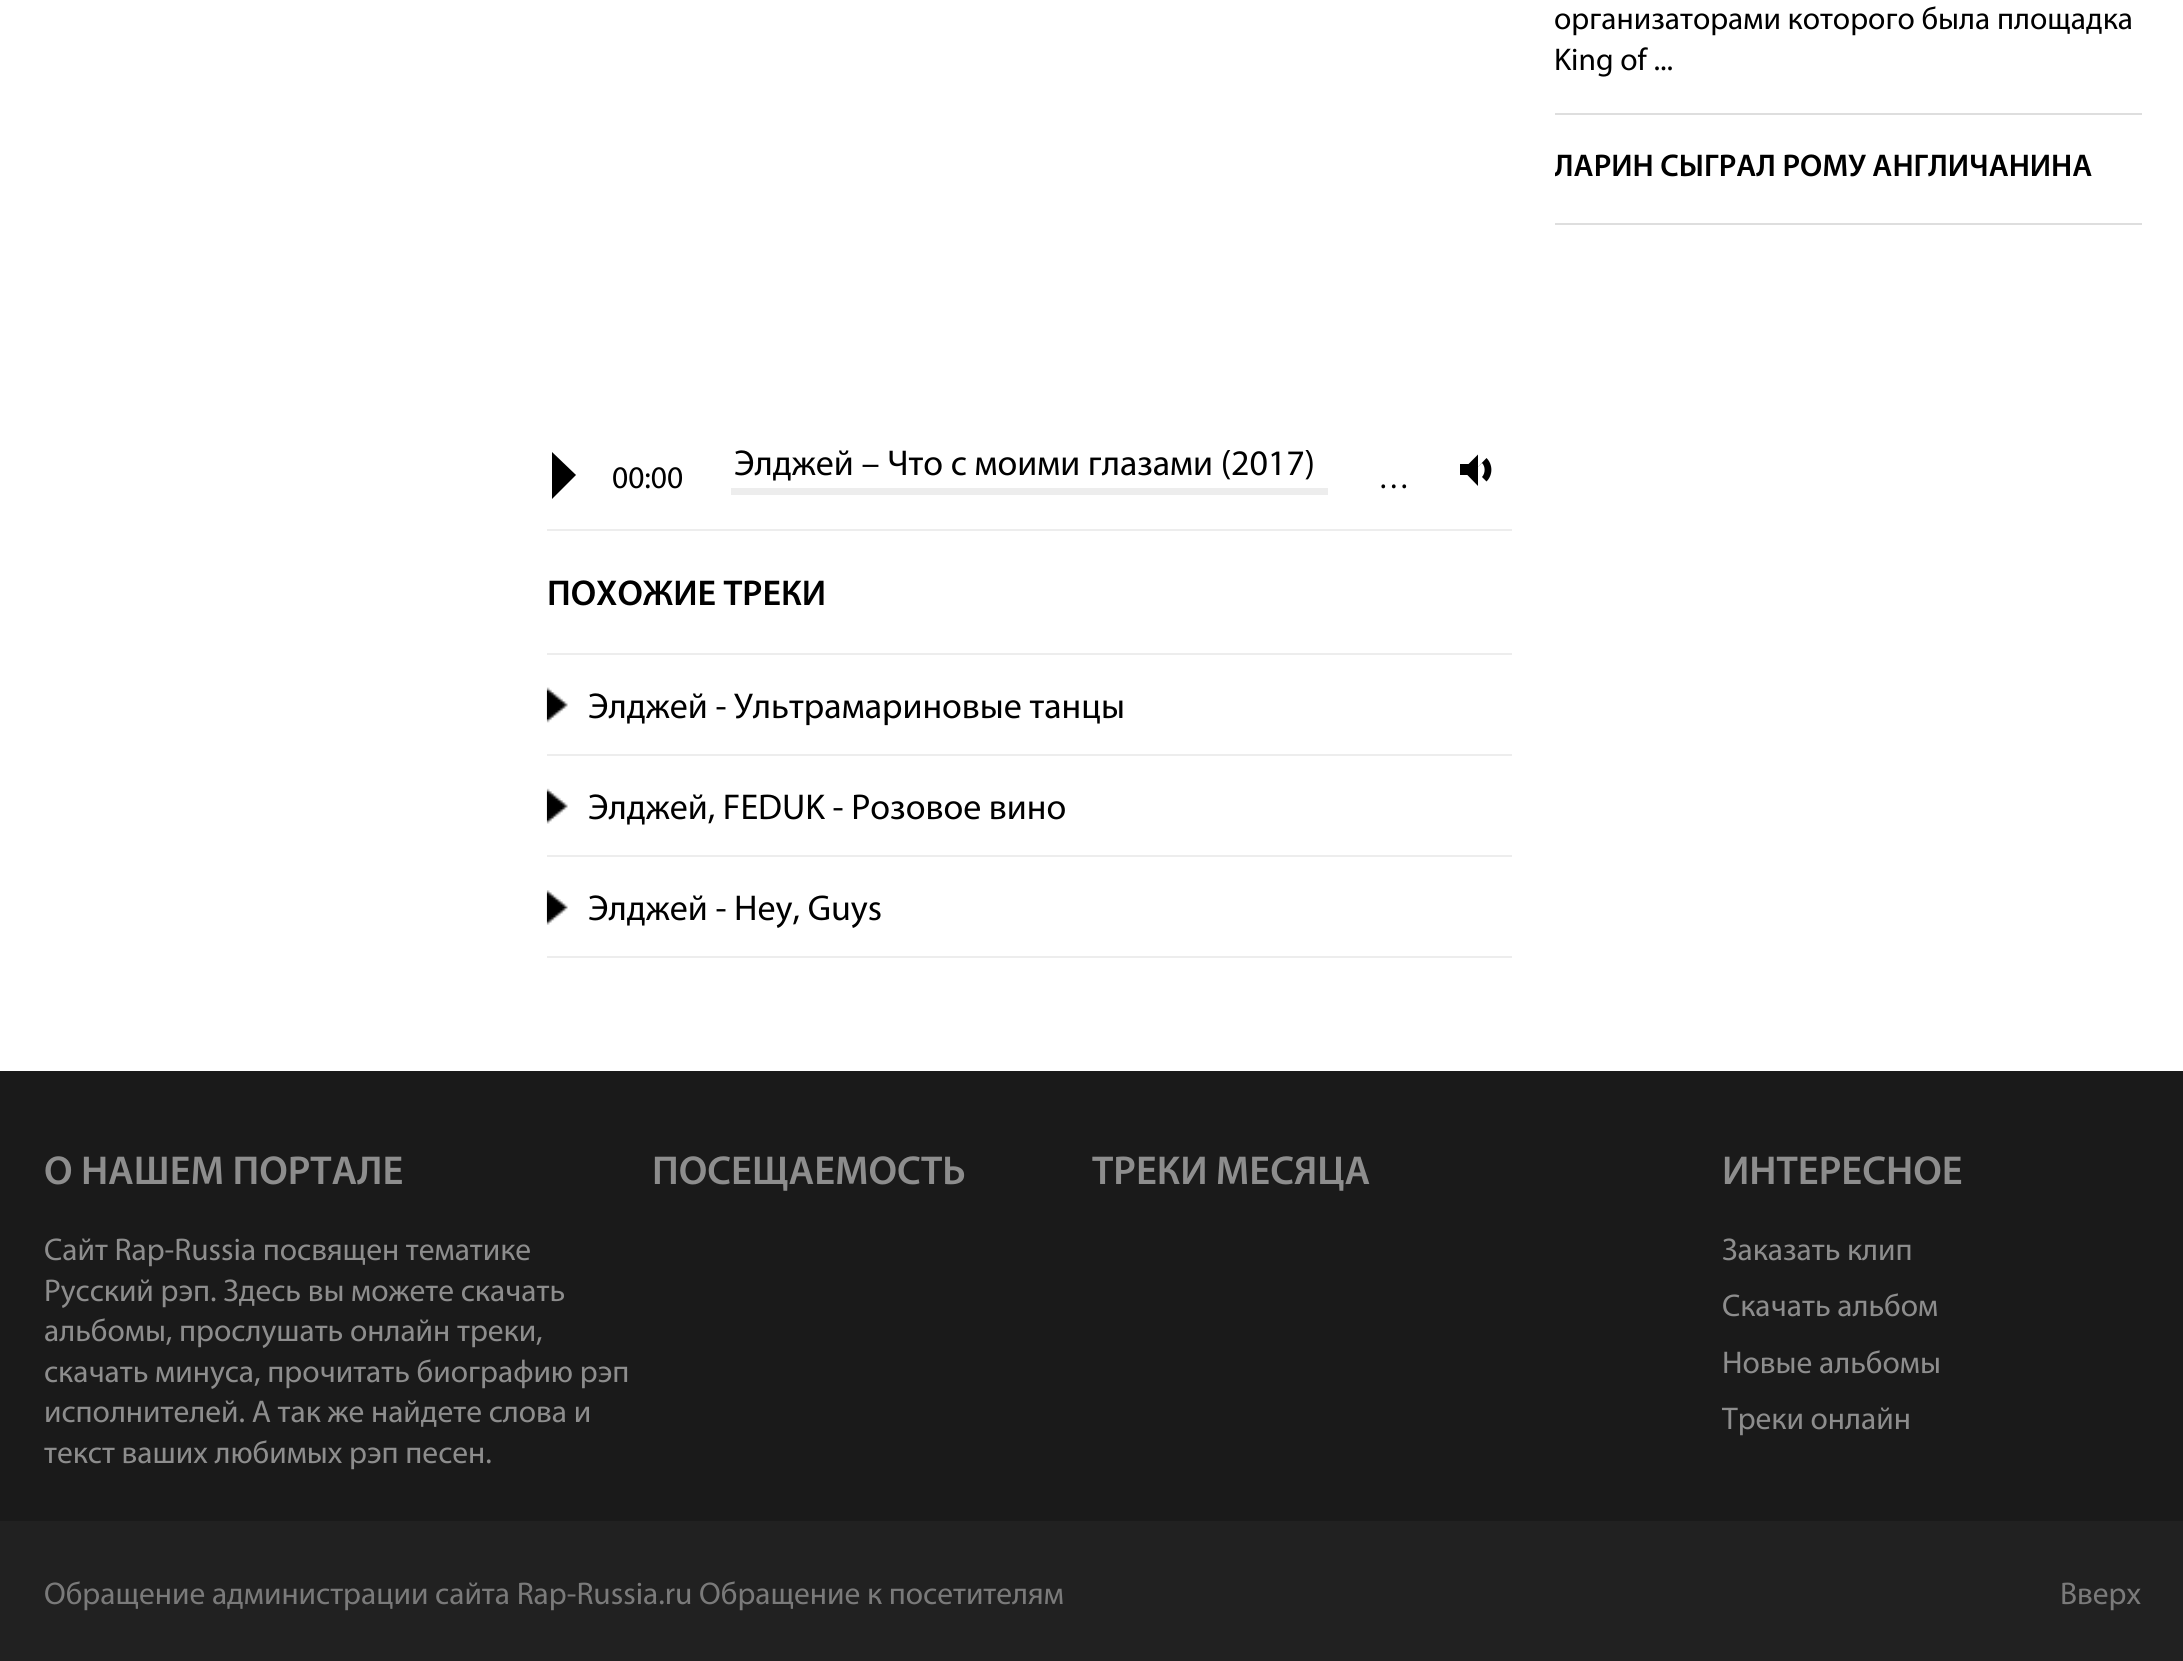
import math
import cairo

surface = cairo.ImageSurface(cairo.Format.RGB24, 2183, 1661)
ctx = cairo.Context(surface)
options = cairo.FontOptions()
options.set_hint_metrics(cairo.HintMetrics.OFF)
options.set_hint_style(cairo.HintStyle.NONE)
ctx.set_font_options(options)
ctx.set_miter_limit(4)


def ink(r, g, b):
    ctx.set_source_rgb(r / 255, g / 255, b / 255)


def write(x, y, s, family, size, color, bold=False, italic=False):
    ctx.select_font_face(family, cairo.FontSlant.ITALIC if italic else cairo.FontSlant.NORMAL, cairo.FontWeight.BOLD if bold else cairo.FontWeight.NORMAL)
    ctx.set_font_size(size)
    ink(*color)
    ctx.move_to(x, y)
    ctx.show_text(s)


def block(x, y, w, h, *color):
    ink(*color)
    ctx.rectangle(x, y, w, h)
    ctx.fill()


def paste(path, x, y, w, h):
    ctx.save()
    ctx.set_source_surface(cairo.ImageSurface.create_from_png(path), x, y)
    ctx.rectangle(x, y, w, h)
    ctx.fill()
    ctx.restore()


s1 = dict(family="Myriad", size=31.5, color=(0, 0, 0))
s2 = dict(family="Myriad SemiBold", size=31.5, color=(0, 0, 0))
s3 = dict(family="Myriad", size=36, color=(0, 0, 0))
s4 = dict(family="Myriad SemiBold", size=36, color=(0, 0, 0))
s5 = dict(family="Myriad SemiBold", size=40.5, color=(141, 141, 141))
s6 = dict(family="Myriad", size=31.5, color=(141, 141, 141))
s7 = dict(family="Myriad", size=31.5, color=(122, 122, 122))

ink(255, 255, 255)
ctx.paint()
block(1555, 113, 587, 2, 222, 222, 222)
write(1554, 29, "организаторами которого была площадка", **s1)
write(1554, 70, "King of ...", **s1)
block(1555, 223, 587, 2, 222, 222, 222)
ctx.save()
ctx.rectangle(1555, 137, 587, 86)
ctx.clip()
write(1554, 176, "ЛАРИН СЫГРАЛ РОМУ АНГЛИЧАНИНА", **s2)
ctx.restore()
block(547, 529, 965, 2, 237, 237, 237)
write(734, 475, "Элджей – Что с моими глазами (2017)", **s3)
ctx.new_path()
ctx.move_to(552, 499)
ctx.line_to(552, 452)
ctx.line_to(576, 475)
ctx.close_path()
ctx.fill()
write(612, 488, "00:00", **s1)
write(1378, 488, "…", **s1)
block(1460, 464, 9, 11, 0, 0, 0)
ctx.set_fill_rule(cairo.FillRule.EVEN_ODD)
ctx.new_path()
ctx.move_to(1486.5, 458)
ctx.curve_to(1493, 464.5, 1493, 475, 1486.5, 481.5)
ctx.line_to(1475, 470)
ctx.close_path()
ctx.move_to(1482, 463)
ctx.curve_to(1485.5, 466.5, 1485.5, 473, 1482, 477)
ctx.line_to(1475, 470)
ctx.close_path()
ctx.fill()
ctx.set_fill_rule(cairo.FillRule.WINDING)
ctx.new_path()
ctx.move_to(1478, 454.5)
ctx.line_to(1478, 486)
ctx.line_to(1462.5, 470)
ctx.close_path()
ctx.fill()
block(731, 488, 597, 7, 237, 237, 237)
block(547, 653, 965, 2, 237, 237, 237)
write(547, 605, "ПОХОЖИЕ ТРЕКИ", **s4)
block(547, 754, 965, 2, 237, 237, 237)
paste("pic1.png", 546, 687, 22, 36)
write(588, 718, "Элджей - Ультрамариновые танцы", **s3)
block(547, 855, 965, 2, 237, 237, 237)
paste("pic2.png", 546, 788, 22, 36)
write(588, 819, "Элджей, FEDUK - Розовое вино", **s3)
block(547, 956, 965, 2, 237, 237, 237)
paste("pic3.png", 546, 890, 22, 35)
write(588, 920, "Элджей - Hey, Guys", **s3)
block(0, 1071, 2183, 450, 26, 26, 26)
write(44, 1184, "О НАШЕМ ПОРТАЛЕ", **s5)
write(44, 1260, "Сайт Rap-Russia посвящен тематике", **s6)
write(44, 1301, "Русский рэп. Здесь вы можете скачать", **s6)
write(44, 1341, "альбомы, прослушать онлайн треки,", **s6)
write(44, 1382, "скачать минуса, прочитать биографию рэп", **s6)
write(44, 1422, "исполнителей. А так же найдете слова и", **s6)
write(44, 1463, "текст ваших любимых рэп песен.", **s6)
write(652, 1184, "ПОСЕЩАЕМОСТЬ", **s5)
write(1092, 1184, "ТРЕКИ МЕСЯЦА", **s5)
write(1722, 1184, "ИНТЕРЕСНОЕ", **s5)
write(1722, 1260, "Заказать клип", **s6)
write(1722, 1316, "Скачать альбом", **s6)
write(1722, 1373, "Новые альбомы", **s6)
write(1722, 1429, "Треки онлайн", **s6)
block(0, 1521, 2183, 140, 33, 33, 33)
write(44, 1604, "Обращение администрации сайта Rap-Russia.ru Обращение к посетителям", **s7)
write(2060, 1604, "Вверх", **s7)
surface.write_to_png("screenshot.png")
